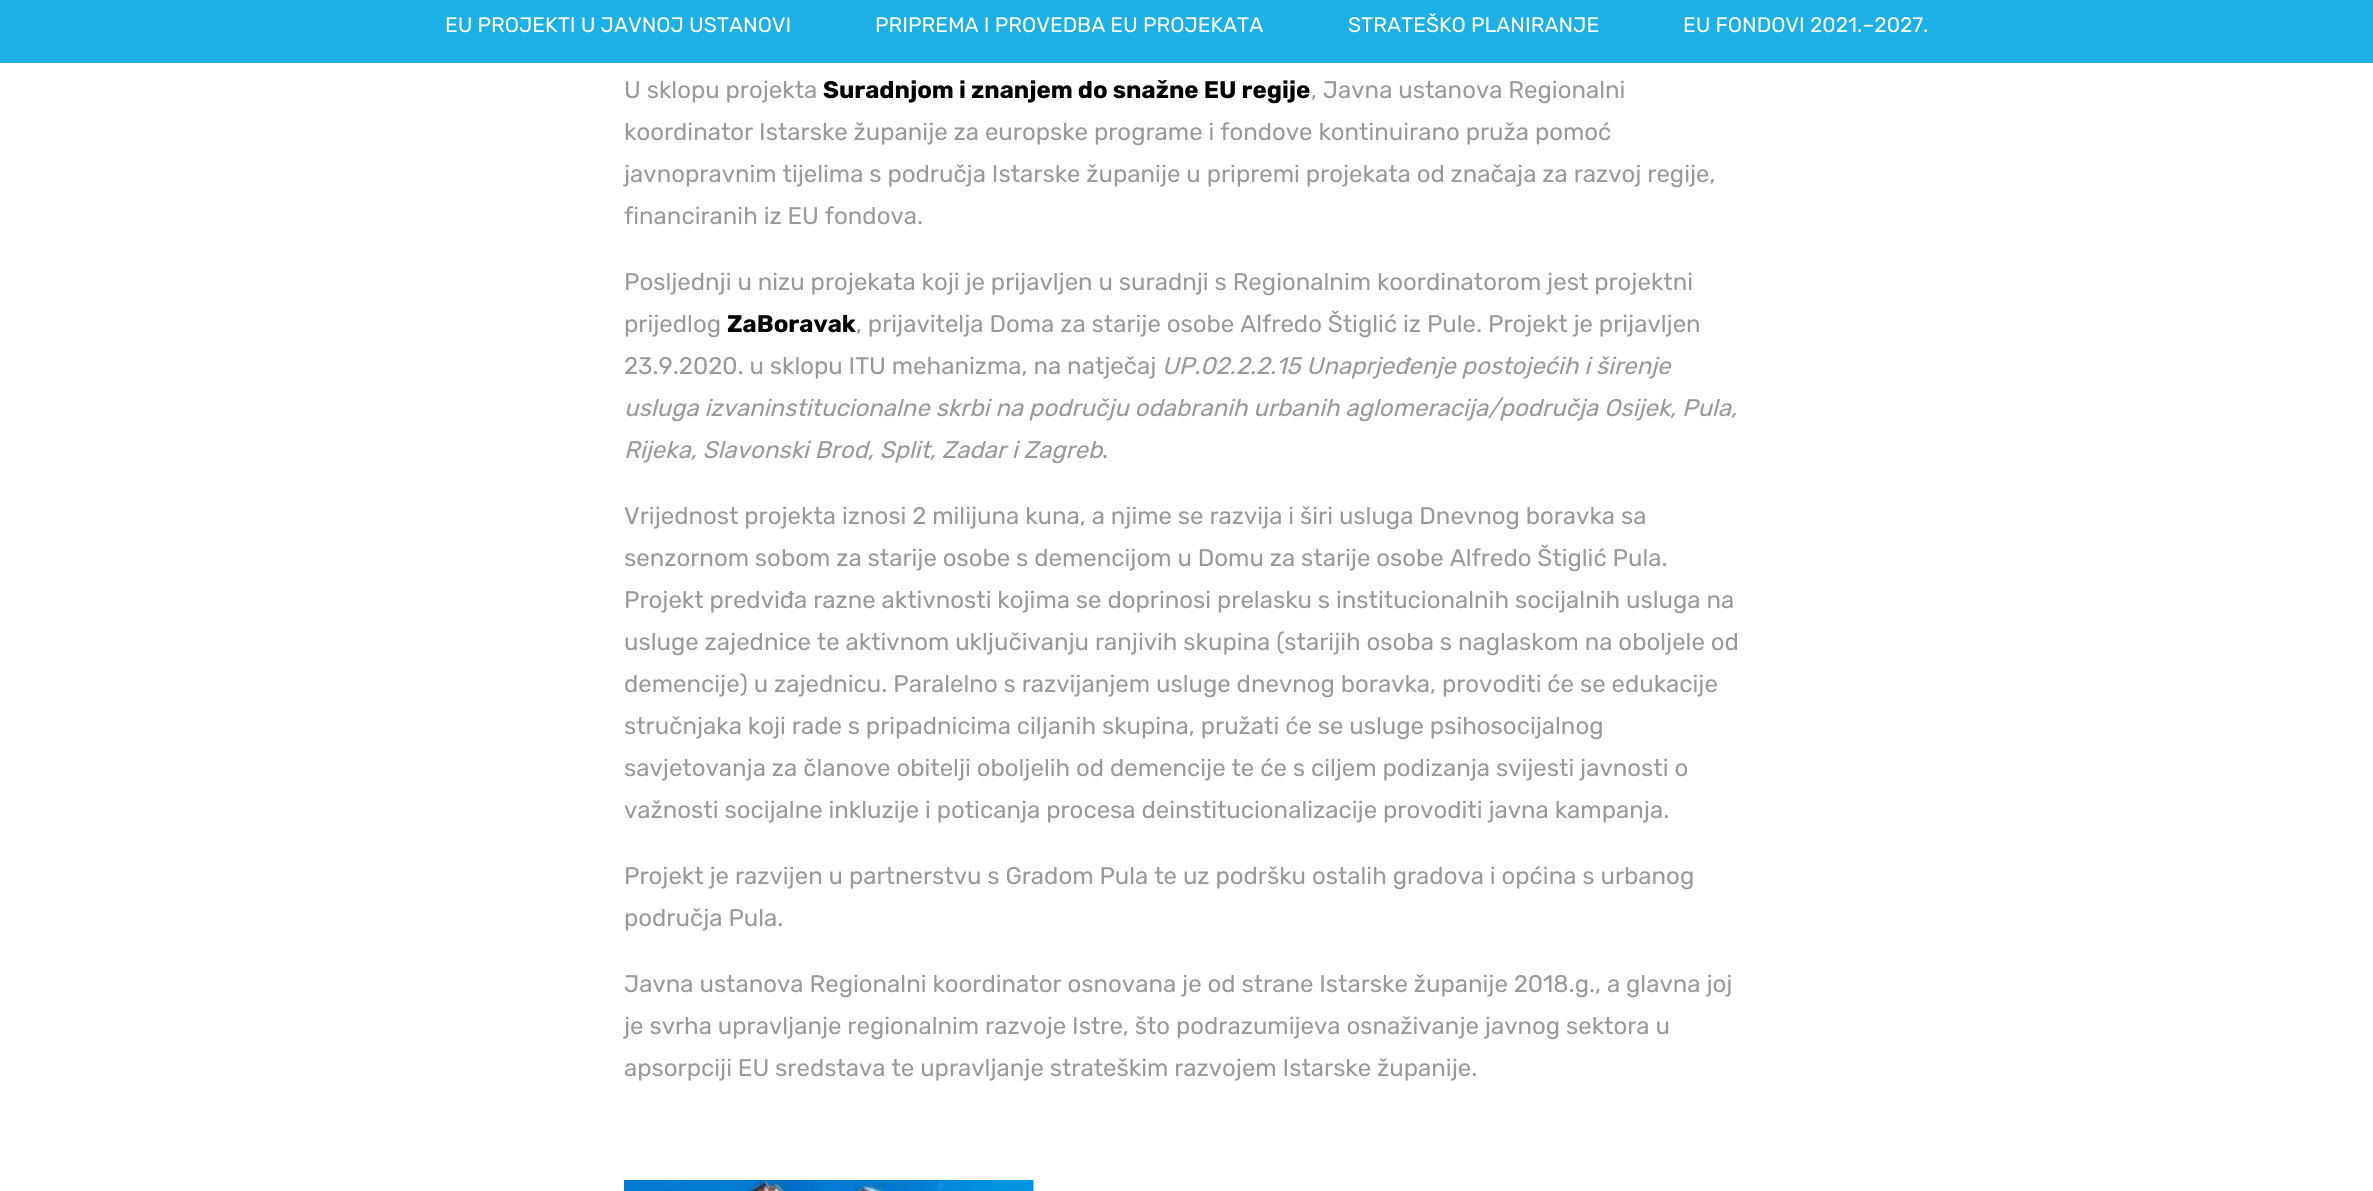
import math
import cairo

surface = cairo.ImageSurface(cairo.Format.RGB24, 2373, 1191)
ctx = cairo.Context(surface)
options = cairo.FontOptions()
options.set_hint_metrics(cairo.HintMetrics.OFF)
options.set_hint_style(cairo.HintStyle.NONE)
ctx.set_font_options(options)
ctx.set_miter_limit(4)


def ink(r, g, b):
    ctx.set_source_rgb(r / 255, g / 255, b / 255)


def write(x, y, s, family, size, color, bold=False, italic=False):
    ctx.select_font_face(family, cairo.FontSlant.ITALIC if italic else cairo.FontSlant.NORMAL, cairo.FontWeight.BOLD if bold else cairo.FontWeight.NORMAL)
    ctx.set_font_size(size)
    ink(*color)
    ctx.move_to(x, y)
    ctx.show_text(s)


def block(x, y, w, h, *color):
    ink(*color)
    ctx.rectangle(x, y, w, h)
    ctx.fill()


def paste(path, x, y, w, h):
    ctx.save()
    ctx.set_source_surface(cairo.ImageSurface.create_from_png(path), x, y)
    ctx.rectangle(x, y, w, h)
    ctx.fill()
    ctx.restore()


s1 = dict(family="Rubik", size=21, color=(255, 255, 255))
s2 = dict(family="Rubik", size=24, color=(153, 153, 153))
s3 = dict(family="Rubik", size=24, color=(0, 0, 0), bold=True)
s4 = dict(family="Rubik", size=24, color=(153, 153, 153), italic=True)

ink(255, 255, 255)
ctx.paint()
block(0, 0, 2373, 63, 29, 176, 230)
write(445, 32, "EU PROJEKTI U JAVNOJ USTANOVI", **s1)
write(875, 32, "PRIPREMA I PROVEDBA EU PROJEKATA", **s1)
write(1348, 32, "STRATEŠKO PLANIRANJE", **s1)
write(1683, 32, "EU FONDOVI 2021.–2027.", **s1)
write(624, 98, "U sklopu projekta", **s2)
write(823, 98, "Suradnjom i znanjem do snažne EU regije", **s3)
write(1311, 98, ", Javna ustanova Regionalni", **s2)
write(624, 140, "koordinator Istarske županije za europske programe i fondove kontinuirano pruža pomoć", **s2)
write(624, 182, "javnopravnim tijelima s područja Istarske županije u pripremi projekata od značaja za razvoj regije,", **s2)
write(624, 224, "financiranih iz EU fondova.", **s2)
write(624, 290, "Posljednji u nizu projekata koji je prijavljen u suradnji s Regionalnim koordinatorom jest projektni", **s2)
write(624, 332, "prijedlog", **s2)
write(727, 332, "ZaBoravak", **s3)
write(856, 332, ", prijavitelja Doma za starije osobe Alfredo Štiglić iz Pule. Projekt je prijavljen", **s2)
write(624, 374, "23.9.2020. u sklopu ITU mehanizma, na natječaj", **s2)
write(1162, 374, "UP.02.2.2.15 Unaprjeđenje postojećih i širenje", **s4)
write(624, 416, "usluga izvaninstitucionalne skrbi na području odabranih urbanih aglomeracija/područja Osijek, Pula,", **s4)
write(624, 458, "Rijeka, Slavonski Brod, Split, Zadar i Zagreb", **s4)
write(1102, 458, ".", **s2)
write(624, 524, "Vrijednost projekta iznosi 2 milijuna kuna, a njime se razvija i širi usluga Dnevnog boravka sa", **s2)
write(624, 566, "senzornom sobom za starije osobe s demencijom u Domu za starije osobe Alfredo Štiglić Pula.", **s2)
write(624, 608, "Projekt predviđa razne aktivnosti kojima se doprinosi prelasku s institucionalnih socijalnih usluga na", **s2)
write(624, 650, "usluge zajednice te aktivnom uključivanju ranjivih skupina (starijih osoba s naglaskom na oboljele od", **s2)
write(624, 692, "demencije) u zajednicu. Paralelno s razvijanjem usluge dnevnog boravka, provoditi će se edukacije", **s2)
write(624, 734, "stručnjaka koji rade s pripadnicima ciljanih skupina, pružati će se usluge psihosocijalnog", **s2)
write(624, 776, "savjetovanja za članove obitelji oboljelih od demencije te će s ciljem podizanja svijesti javnosti o", **s2)
write(624, 818, "važnosti socijalne inkluzije i poticanja procesa deinstitucionalizacije provoditi javna kampanja.", **s2)
write(624, 884, "Projekt je razvijen u partnerstvu s Gradom Pula te uz podršku ostalih gradova i općina s urbanog", **s2)
write(624, 926, "područja Pula.", **s2)
write(624, 992, "Javna ustanova Regionalni koordinator osnovana je od strane Istarske županije 2018.g., a glavna joj", **s2)
write(624, 1034, "je svrha upravljanje regionalnim razvoje Istre, što podrazumijeva osnaživanje javnog sektora u", **s2)
write(624, 1076, "apsorpciji EU sredstava te upravljanje strateškim razvojem Istarske županije.", **s2)
paste("pic1.png", 624, 1180, 410, 11)
surface.write_to_png("screenshot.png")
